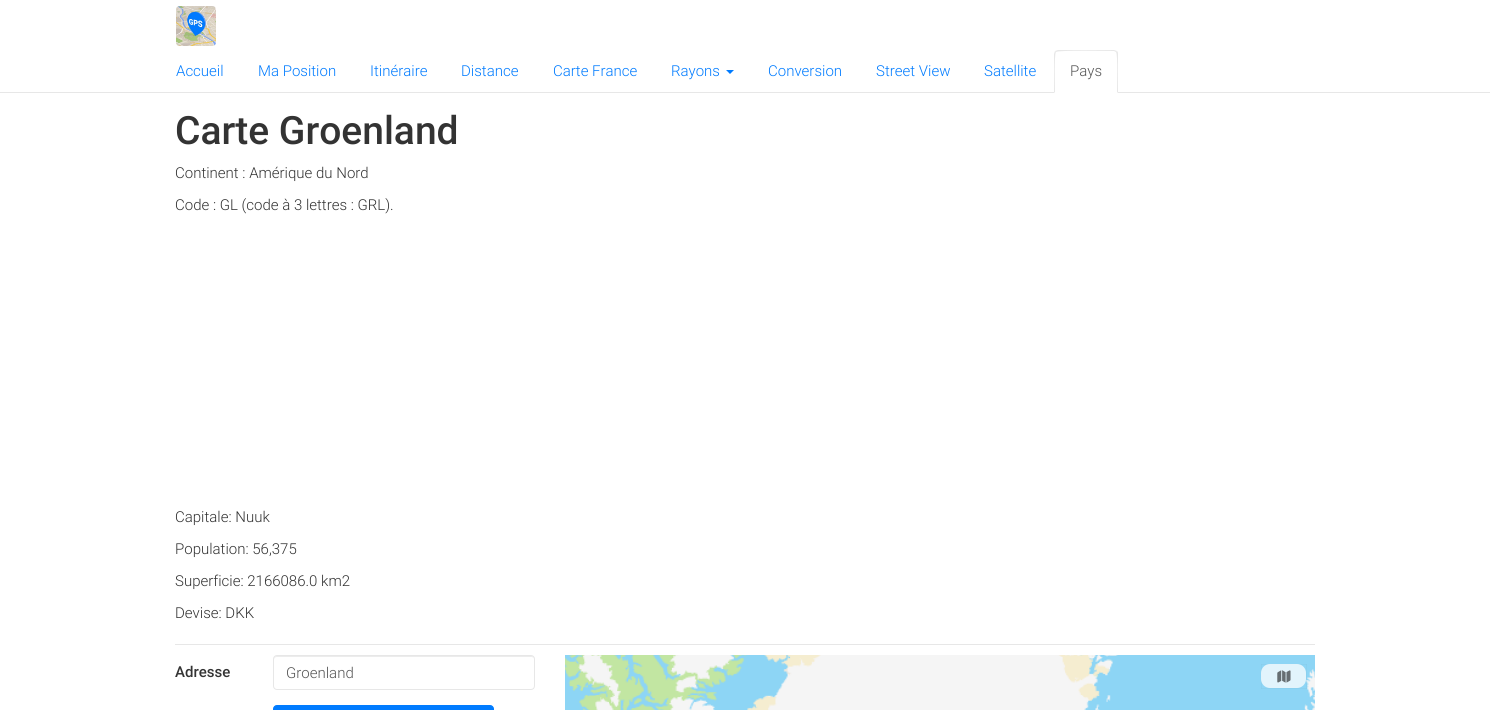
import math
import cairo

surface = cairo.ImageSurface(cairo.Format.RGB24, 1490, 710)
ctx = cairo.Context(surface)
options = cairo.FontOptions()
options.set_hint_metrics(cairo.HintMetrics.OFF)
options.set_hint_style(cairo.HintStyle.NONE)
ctx.set_font_options(options)
ctx.set_miter_limit(4)


def ink(r, g, b):
    ctx.set_source_rgb(r / 255, g / 255, b / 255)


def write(x, y, s, family, size, color, bold=False, italic=False):
    ctx.select_font_face(family, cairo.FontSlant.ITALIC if italic else cairo.FontSlant.NORMAL, cairo.FontWeight.BOLD if bold else cairo.FontWeight.NORMAL)
    ctx.set_font_size(size)
    ink(*color)
    ctx.move_to(x, y)
    ctx.show_text(s)


def block(x, y, w, h, *color):
    ink(*color)
    ctx.rectangle(x, y, w, h)
    ctx.fill()


def round_path(x, y, w, h, r):
    ctx.new_sub_path()
    for i, (u, v) in enumerate([(x + w - r, y + h - r), (x + r, y + h - r), (x + r, y + r), (x + w - r, y + r)]):
        ctx.arc(u, v, r, i * math.pi / 2, (i + 1) * math.pi / 2)
    ctx.close_path()


def paste(path, x, y, w, h):
    ctx.save()
    ctx.set_source_surface(cairo.ImageSurface.create_from_png(path), x, y)
    ctx.rectangle(x, y, w, h)
    ctx.fill()
    ctx.restore()


s1 = dict(family="Roboto Light", size=15, color=(0, 123, 255))
s2 = dict(family="Roboto Light", size=15, color=(85, 85, 85))
s3 = dict(family="Roboto Medium", size=39, color=(51, 51, 51))
s4 = dict(family="Roboto Light", size=15, color=(51, 51, 51))
s5 = dict(family="Roboto Medium", size=15, color=(51, 51, 51))

ink(255, 255, 255)
ctx.paint()
block(0, 92, 1490, 1, 231, 231, 231)
paste("pic1.png", 176, 6, 40, 40)
write(176, 76, "Accueil", **s1)
write(258, 76, "Ma Position", **s1)
write(370, 76, "Itinéraire", **s1)
write(461, 76, "Distance", **s1)
write(553, 76, "Carte France", **s1)
write(671, 76, "Rayons", **s1)
ctx.new_path()
ctx.move_to(726, 70)
ctx.line_to(734, 70)
ctx.line_to(730, 74)
ctx.close_path()
ctx.fill()
write(768, 76, "Conversion", **s1)
write(876, 76, "Street View", **s1)
write(984, 76, "Satellite", **s1)
ink(255, 255, 255)
ctx.new_path()
ctx.move_to(1058, 50)
ctx.line_to(1114, 50)
ctx.curve_to(1116, 50, 1118, 52, 1118, 54)
ctx.line_to(1118, 93)
ctx.line_to(1054, 93)
ctx.line_to(1054, 54)
ctx.curve_to(1054, 52, 1056, 50, 1058, 50)
ctx.close_path()
ctx.fill()
ink(231, 231, 231)
ctx.new_path()
ctx.move_to(1058, 50)
ctx.line_to(1055, 51)
ctx.line_to(1056, 52)
ctx.curve_to(1058, 50, 1109, 51, 1114, 51)
ctx.line_to(1116, 52)
ctx.line_to(1117, 51)
ctx.line_to(1114, 50)
ctx.close_path()
ctx.fill()
ctx.new_path()
ctx.move_to(1118, 93)
ctx.line_to(1118, 54)
ctx.curve_to(1118, 53, 1118, 52, 1117, 51)
ctx.line_to(1116, 52)
ctx.curve_to(1118, 54, 1117, 87, 1117, 92)
ctx.close_path()
ctx.fill()
ctx.new_path()
ctx.move_to(1054, 93)
ctx.line_to(1055, 92)
ctx.curve_to(1055, 87, 1054, 54, 1056, 52)
ctx.line_to(1055, 51)
ctx.line_to(1054, 54)
ctx.close_path()
ctx.fill()
write(1070, 76, "Pays", **s2)
block(175, 644, 1140, 1, 231, 231, 231)
write(175, 144, "Carte Groenland", **s3)
write(175, 178, "Continent : Amérique du Nord", **s4)
write(175, 210, "Code : GL (code à 3 lettres : GRL).", **s4)
write(175, 522, "Capitale: Nuuk", **s4)
write(175, 554, "Population: 56,375", **s4)
write(175, 586, "Superficie: 2166086.0 km2", **s4)
write(175, 618, "Devise: DKK", **s4)
write(175, 677, "Adresse", **s5)
ink(236, 236, 236)
ctx.new_path()
ctx.move_to(277, 657)
ctx.line_to(532, 657)
ctx.line_to(534, 658)
ctx.line_to(534, 660)
ctx.line_to(534, 659)
ctx.curve_to(534, 657, 533, 656, 531, 656)
ctx.line_to(277, 656)
ctx.curve_to(275, 656, 274, 657, 274, 659)
ctx.line_to(274, 660)
ctx.curve_to(274, 658, 275, 657, 277, 657)
ctx.close_path()
ctx.fill()
round_path(273.5, 655.5, 261, 34, 3.5)
ink(231, 231, 231)
ctx.set_line_width(1)
ctx.stroke()
write(286, 678, "Groenland", **s2)
ink(0, 123, 255)
round_path(273.5, 705.5, 220, 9, 3.5)
ctx.fill_preserve()
ctx.stroke()
paste("pic2.png", 565, 655, 750, 55)
ctx.rectangle(1261.25, 664.25, 45.5, 24.5)
ctx.set_source_rgba(0, 0, 0, 0.05)
ctx.set_line_width(0.5)
ctx.stroke()
ctx.set_source_rgba(1, 1, 1, 0.75)
round_path(1261, 664, 45, 24, 9)
ctx.fill()
paste("pic3.png", 1277, 670, 14, 13)
surface.write_to_png("screenshot.png")
